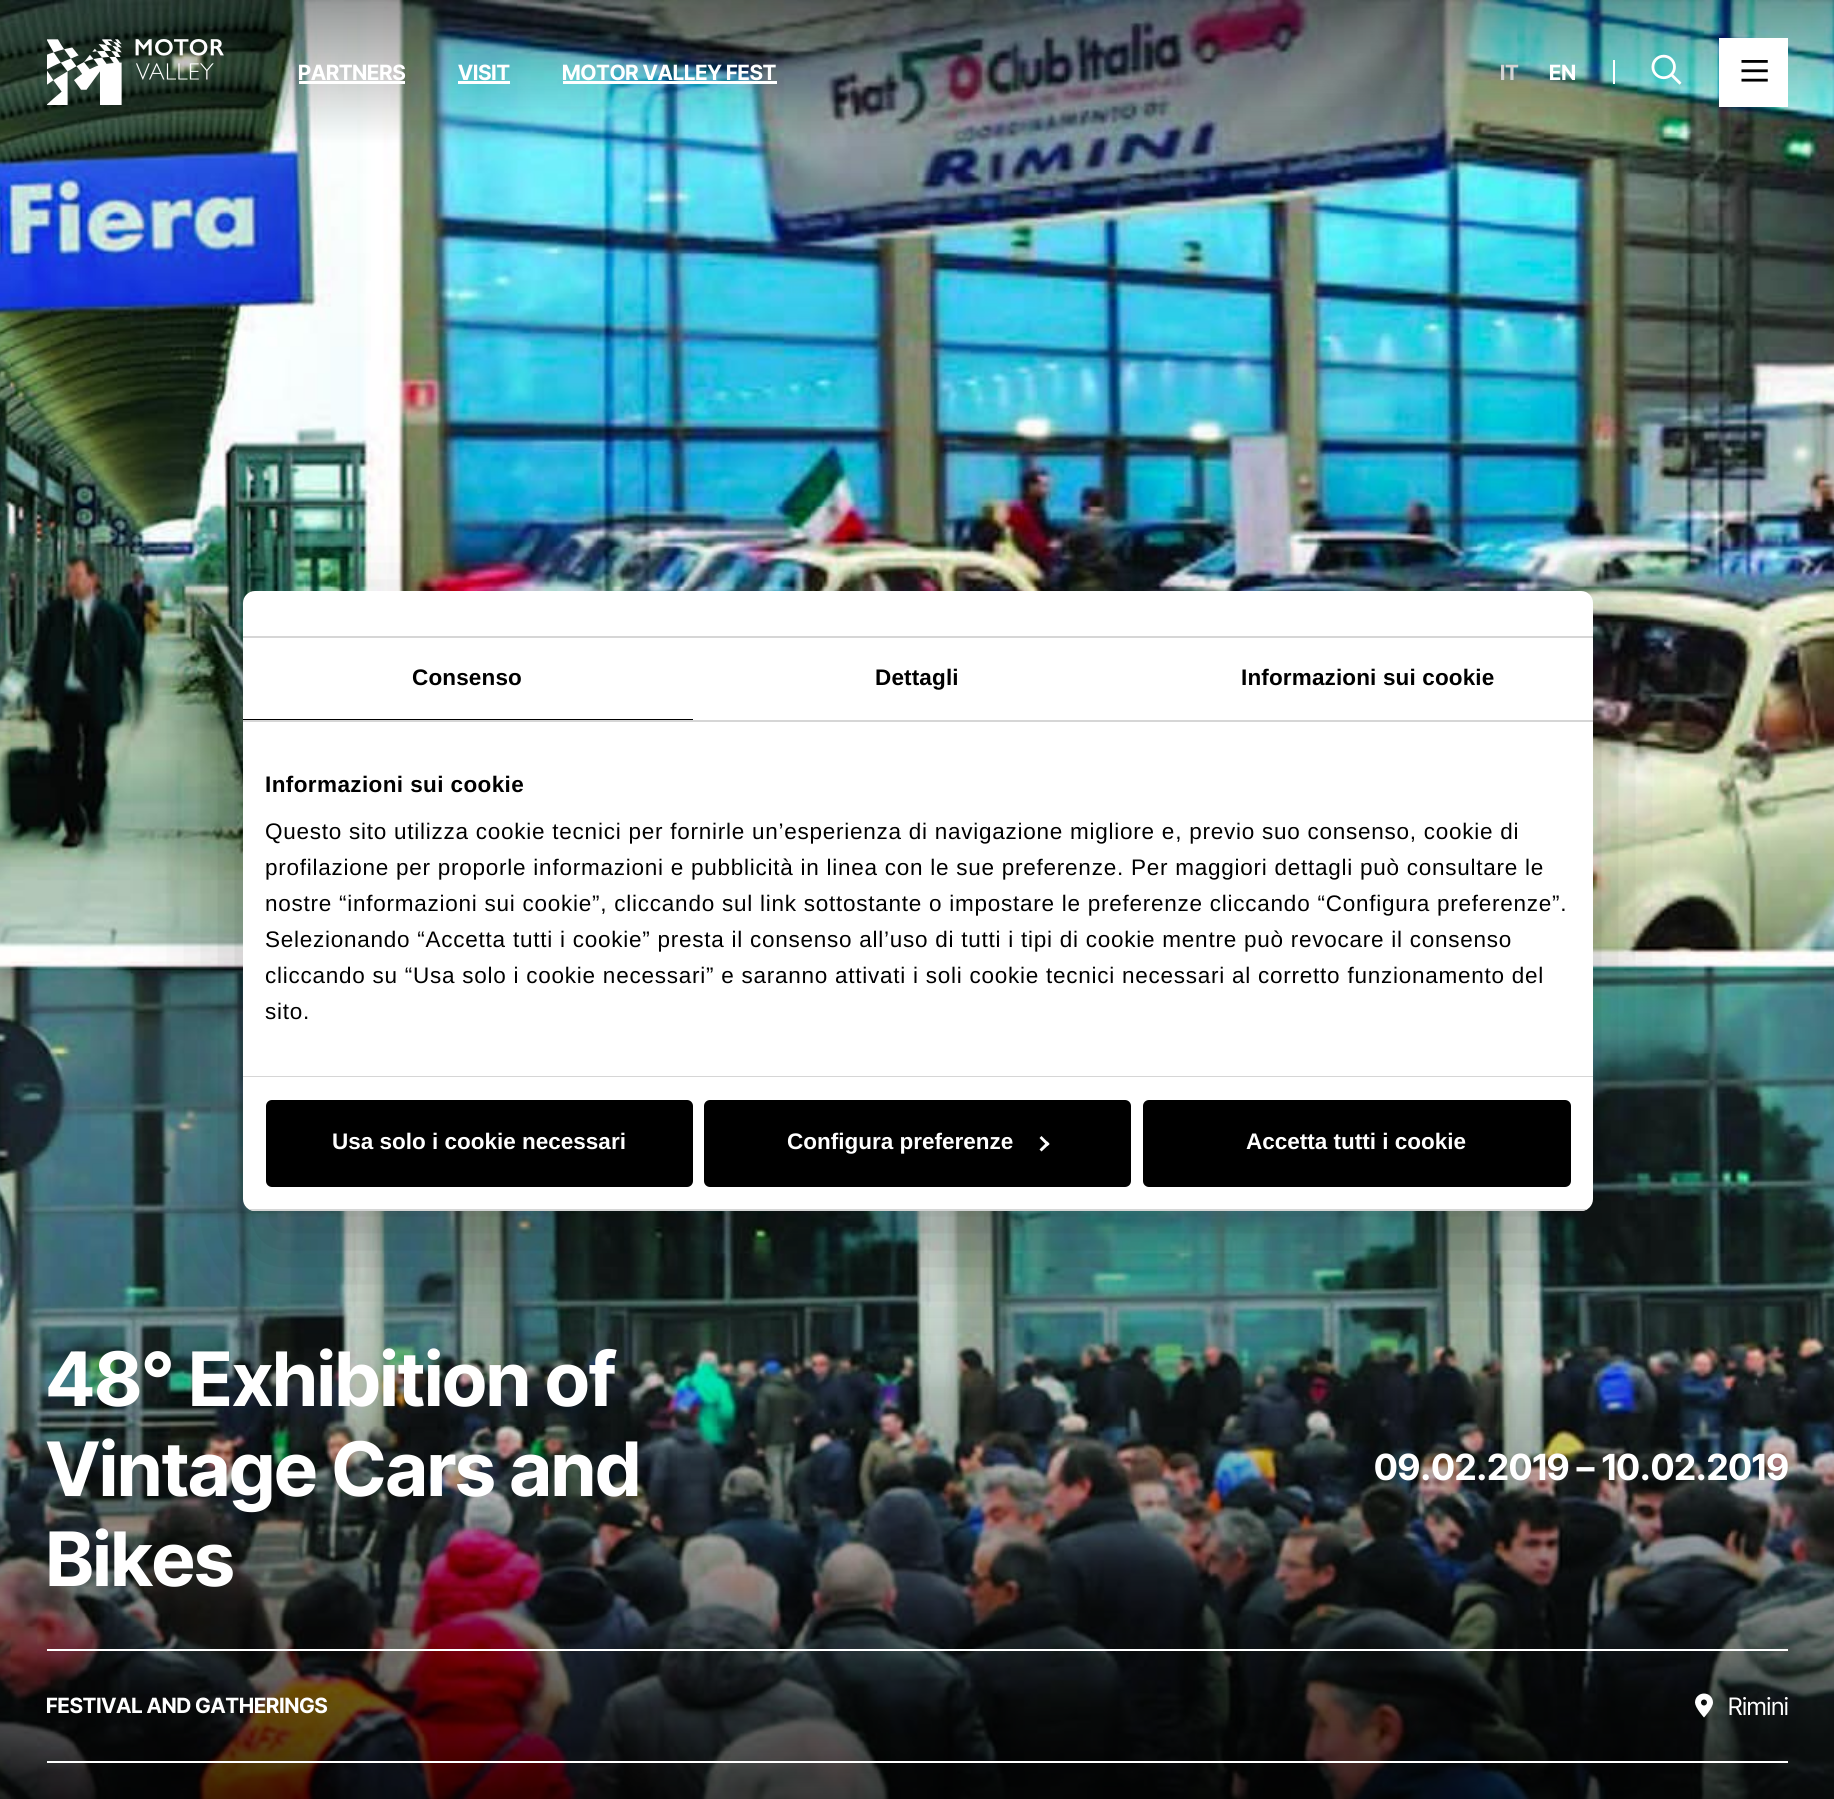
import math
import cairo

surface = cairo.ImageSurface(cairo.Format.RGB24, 1834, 1799)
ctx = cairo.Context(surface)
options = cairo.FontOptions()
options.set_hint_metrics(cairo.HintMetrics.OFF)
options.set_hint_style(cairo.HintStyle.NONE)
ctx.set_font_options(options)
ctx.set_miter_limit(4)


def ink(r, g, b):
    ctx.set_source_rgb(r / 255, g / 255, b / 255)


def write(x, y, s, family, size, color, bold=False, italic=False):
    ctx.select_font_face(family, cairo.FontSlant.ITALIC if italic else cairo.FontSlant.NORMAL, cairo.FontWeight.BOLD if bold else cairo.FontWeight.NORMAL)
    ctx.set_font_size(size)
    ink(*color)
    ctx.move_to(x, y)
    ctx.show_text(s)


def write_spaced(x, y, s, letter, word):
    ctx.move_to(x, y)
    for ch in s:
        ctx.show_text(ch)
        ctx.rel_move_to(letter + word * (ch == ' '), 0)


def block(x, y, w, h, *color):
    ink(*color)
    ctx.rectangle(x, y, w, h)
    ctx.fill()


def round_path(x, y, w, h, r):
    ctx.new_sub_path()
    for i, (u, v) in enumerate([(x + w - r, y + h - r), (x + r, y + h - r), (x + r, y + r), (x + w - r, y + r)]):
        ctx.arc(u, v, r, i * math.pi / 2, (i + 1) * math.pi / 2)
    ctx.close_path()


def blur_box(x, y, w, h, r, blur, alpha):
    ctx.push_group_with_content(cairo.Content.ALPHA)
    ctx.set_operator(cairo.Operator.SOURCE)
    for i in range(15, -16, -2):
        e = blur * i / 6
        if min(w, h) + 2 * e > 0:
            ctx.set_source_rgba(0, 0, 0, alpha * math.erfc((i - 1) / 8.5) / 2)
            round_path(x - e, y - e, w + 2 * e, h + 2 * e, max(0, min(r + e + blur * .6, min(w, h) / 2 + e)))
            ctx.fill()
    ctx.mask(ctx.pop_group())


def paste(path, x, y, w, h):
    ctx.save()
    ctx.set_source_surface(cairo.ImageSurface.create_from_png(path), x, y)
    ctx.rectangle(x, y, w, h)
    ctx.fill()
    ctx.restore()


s1 = dict(family="Inter Tight", size=21, color=(255, 255, 255), bold=True)
s2 = dict(family="Inter Tight", size=21, color=(211, 211, 211), bold=True)
s3 = dict(family="Liberation Sans", size=22.5, color=(255, 255, 255), bold=True)
s4 = dict(family="Inter Tight", size=75, color=(255, 255, 255), bold=True)
s5 = dict(family="Inter Tight", size=36, color=(255, 255, 255), bold=True)
s6 = dict(family="Inter Tight", size=24, color=(255, 255, 255))

ink(255, 255, 255)
ctx.paint()
paste("pic4.png", 0, 0, 1834, 1799)
paste("pic1.png", 47, 39, 177, 66)
write(298, 80, "PARTNERS", **s1)
block(299, 81, 106, 3, 255, 255, 255)
write(458, 80, "VISIT", **s1)
block(458, 81, 52, 3, 255, 255, 255)
write(562, 80, "MOTOR VALLEY FEST", **s1)
block(563, 81, 214, 3, 255, 255, 255)
block(1613, 60, 2, 24, 255, 255, 255)
write(1500, 80, "IT", **s2)
write(1549, 80, "EN", **s1)
paste("pic2.png", 1651, 54, 31, 31)
block(1719, 38, 69, 69, 255, 255, 255)
paste("pic3.png", 1741, 60, 27, 22)
ink(0, 0, 0)
blur_box(243, 639, 1350, 620, 12, 51, 0.3)
ink(255, 255, 255)
round_path(243, 591, 1350, 620, 12)
ctx.fill()
block(243, 636, 1350, 2, 214, 214, 214)
block(243, 720, 1350, 2, 214, 214, 214)
block(243, 719, 450, 1, 0, 0, 0)
ctx.select_font_face("Liberation Sans", cairo.FontSlant.NORMAL, cairo.FontWeight.BOLD)
ctx.set_font_size(22.5)
write_spaced(412, 685, "Consenso", 0.15, 0)
write_spaced(875, 685, "Dettagli", 0.15, 0)
write_spaced(1241, 685, "Informazioni sui cookie", 0.15, 0)
block(243, 1076, 1350, 1, 214, 214, 214)
ink(0, 0, 0)
write_spaced(265, 792, "Informazioni sui cookie", 0.4, 0)
ctx.select_font_face("Liberation Sans")
write_spaced(265, 839, "Questo sito utilizza cookie tecnici per fornirle un’esperienza di navigazione migliore e, previo suo consenso, cookie di", 0.75, 0)
write_spaced(265, 875, "profilazione per proporle informazioni e pubblicità in linea con le sue preferenze. Per maggiori dettagli può consultare le", 0.75, 0)
write_spaced(265, 911, "nostre “informazioni sui cookie”, cliccando sul link sottostante o impostare le preferenze cliccando “Configura preferenze”.", 0.75, 0)
write_spaced(265, 947, "Selezionando “Accetta tutti i cookie” presta il consenso all’uso di tutti i tipi di cookie mentre può revocare il consenso", 0.75, 0)
write_spaced(265, 983, "cliccando su “Usa solo i cookie necessari” e saranno attivati i soli cookie tecnici necessari al corretto funzionamento del", 0.75, 0)
write_spaced(265, 1019, "sito.", 0.75, 0)
ctx.save()
round_path(243, 591, 1350, 620, 12)
ctx.clip()
block(243, 1209, 1350, 2, 214, 214, 214)
ctx.restore()
round_path(267.5, 1101.5, 424, 84, 4.5)
ctx.fill_preserve()
ctx.set_line_width(3)
ctx.stroke()
write(332, 1149, "Usa solo i cookie necessari", **s3)
ink(0, 0, 0)
round_path(705.5, 1101.5, 424, 84, 4.5)
ctx.fill_preserve()
ctx.stroke()
write(787, 1149, "Configura preferenze", **s3)
ctx.new_path()
ctx.move_to(1041.5, 1136)
ctx.line_to(1049.5, 1144)
ctx.line_to(1047.5, 1146)
ctx.line_to(1039.5, 1138)
ctx.close_path()
ctx.fill()
ctx.new_path()
ctx.move_to(1047.5, 1141.5)
ctx.line_to(1049.5, 1144)
ctx.line_to(1041.5, 1151.5)
ctx.line_to(1039.5, 1149.5)
ctx.close_path()
ctx.fill()
ink(0, 0, 0)
round_path(1144.5, 1101.5, 425, 84, 4.5)
ctx.fill_preserve()
ctx.stroke()
write(1246, 1149, "Accetta tutti i cookie", **s3)
write(46, 1406, "48° Exhibition of", **s4)
write(46, 1496, "Vintage Cars and", **s4)
write(46, 1586, "Bikes", **s4)
write(1374, 1480, "09.02.2019 – 10.02.2019", **s5)
block(47, 1649, 1741, 2, 255, 255, 255)
block(47, 1761, 1741, 2, 255, 255, 255)
write(46, 1713, "FESTIVAL AND GATHERINGS", **s1)
paste("pic5.png", 1695, 1693, 18, 25)
write(1728, 1715, "Rimini", **s6)
surface.write_to_png("screenshot.png")
